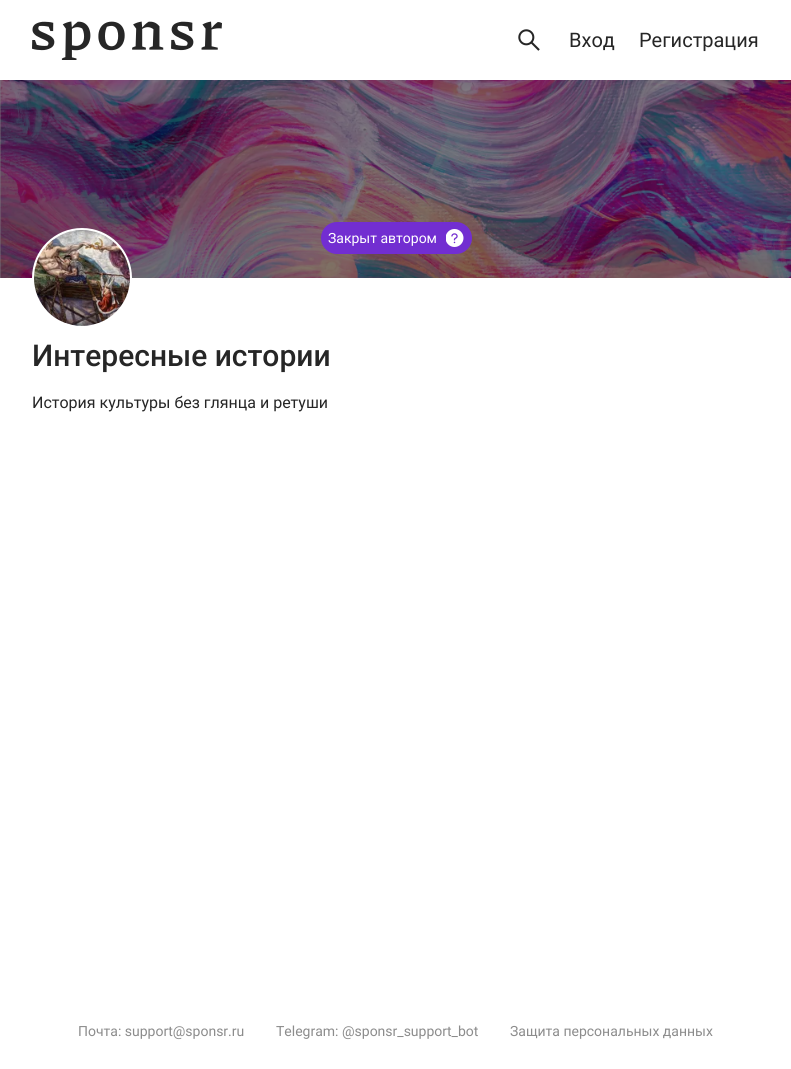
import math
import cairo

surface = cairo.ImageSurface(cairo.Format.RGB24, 791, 1069)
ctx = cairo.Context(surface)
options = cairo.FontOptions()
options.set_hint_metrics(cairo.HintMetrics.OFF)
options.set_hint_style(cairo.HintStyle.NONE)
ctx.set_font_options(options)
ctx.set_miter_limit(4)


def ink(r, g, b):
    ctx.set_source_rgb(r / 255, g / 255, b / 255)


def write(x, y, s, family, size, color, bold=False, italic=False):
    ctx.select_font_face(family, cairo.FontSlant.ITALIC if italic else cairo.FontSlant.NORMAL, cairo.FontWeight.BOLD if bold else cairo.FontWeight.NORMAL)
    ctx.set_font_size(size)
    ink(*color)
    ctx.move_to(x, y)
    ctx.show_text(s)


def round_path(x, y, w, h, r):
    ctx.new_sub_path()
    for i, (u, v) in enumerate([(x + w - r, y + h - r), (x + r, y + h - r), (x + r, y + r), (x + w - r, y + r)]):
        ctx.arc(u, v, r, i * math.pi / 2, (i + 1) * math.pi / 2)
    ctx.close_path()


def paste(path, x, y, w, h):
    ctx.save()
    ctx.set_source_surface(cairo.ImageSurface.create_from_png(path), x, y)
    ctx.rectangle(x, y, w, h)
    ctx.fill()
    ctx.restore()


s1 = dict(family="Roboto", size=20, color=(38, 38, 38))
s2 = dict(family="Roboto", size=14, color=(255, 255, 255))
s3 = dict(family="Roboto Medium", size=30, color=(38, 38, 38))
s4 = dict(family="Roboto", size=16, color=(38, 38, 38))
s5 = dict(family="Roboto", size=14, color=(140, 140, 140))

ink(255, 255, 255)
ctx.paint()
paste("pic1.png", 32, 21, 190, 39)
paste("pic2.png", 518, 29, 22, 22)
write(569, 47, "Вход", **s1)
write(639, 47, "Регистрация", **s1)
paste("pic3.png", 0, 80, 791, 198)
ink(114, 46, 209)
round_path(321, 222, 151, 32, 16)
ctx.fill()
write(328, 243, "Закрыт автором", **s2)
paste("pic4.png", 446, 229, 18, 18)
ctx.arc(82, 278, 49, 0, 2 * math.pi)
ctx.fill_preserve()
ctx.stroke()
paste("pic5.png", 34, 230, 96, 96)
write(32, 366, "Интересные истории", **s3)
write(32, 408, "История культуры без глянца и ретуши", **s4)
write(78, 1036, "Почта: support@sponsr.ru", **s5)
write(276, 1036, "Telegram: @sponsr_support_bot", **s5)
write(510, 1036, "Защита персональных данных", **s5)
surface.write_to_png("screenshot.png")
